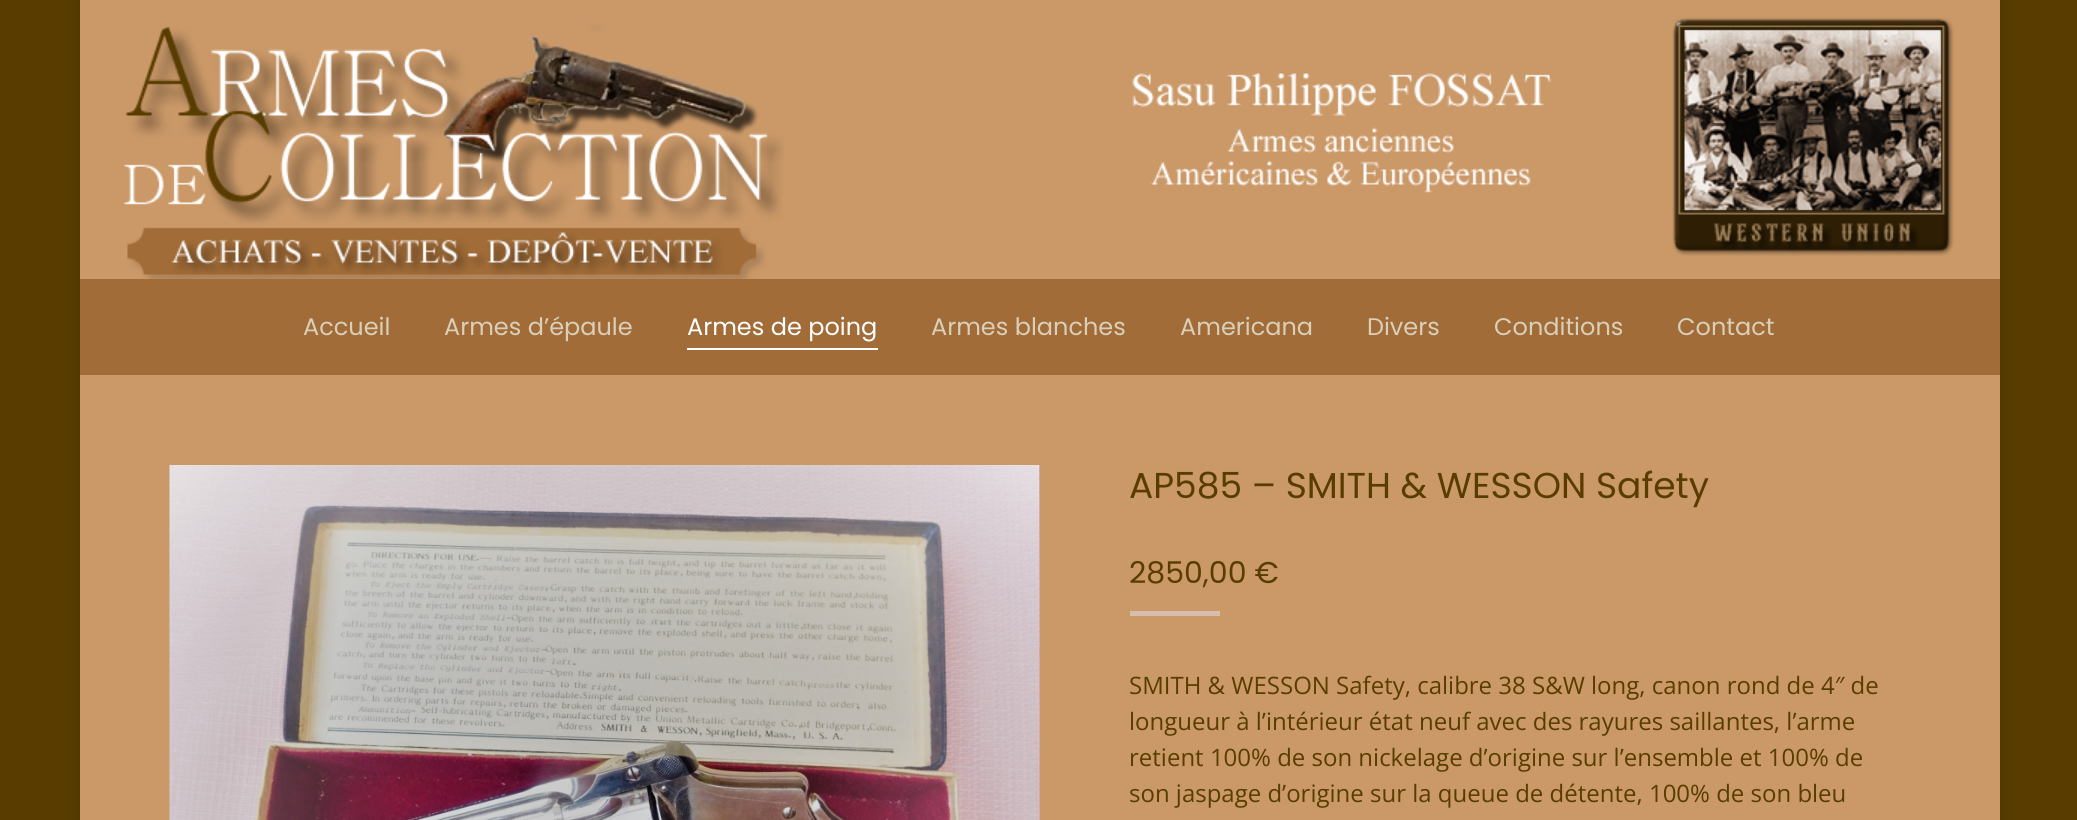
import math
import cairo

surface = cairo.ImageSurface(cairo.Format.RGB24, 2077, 820)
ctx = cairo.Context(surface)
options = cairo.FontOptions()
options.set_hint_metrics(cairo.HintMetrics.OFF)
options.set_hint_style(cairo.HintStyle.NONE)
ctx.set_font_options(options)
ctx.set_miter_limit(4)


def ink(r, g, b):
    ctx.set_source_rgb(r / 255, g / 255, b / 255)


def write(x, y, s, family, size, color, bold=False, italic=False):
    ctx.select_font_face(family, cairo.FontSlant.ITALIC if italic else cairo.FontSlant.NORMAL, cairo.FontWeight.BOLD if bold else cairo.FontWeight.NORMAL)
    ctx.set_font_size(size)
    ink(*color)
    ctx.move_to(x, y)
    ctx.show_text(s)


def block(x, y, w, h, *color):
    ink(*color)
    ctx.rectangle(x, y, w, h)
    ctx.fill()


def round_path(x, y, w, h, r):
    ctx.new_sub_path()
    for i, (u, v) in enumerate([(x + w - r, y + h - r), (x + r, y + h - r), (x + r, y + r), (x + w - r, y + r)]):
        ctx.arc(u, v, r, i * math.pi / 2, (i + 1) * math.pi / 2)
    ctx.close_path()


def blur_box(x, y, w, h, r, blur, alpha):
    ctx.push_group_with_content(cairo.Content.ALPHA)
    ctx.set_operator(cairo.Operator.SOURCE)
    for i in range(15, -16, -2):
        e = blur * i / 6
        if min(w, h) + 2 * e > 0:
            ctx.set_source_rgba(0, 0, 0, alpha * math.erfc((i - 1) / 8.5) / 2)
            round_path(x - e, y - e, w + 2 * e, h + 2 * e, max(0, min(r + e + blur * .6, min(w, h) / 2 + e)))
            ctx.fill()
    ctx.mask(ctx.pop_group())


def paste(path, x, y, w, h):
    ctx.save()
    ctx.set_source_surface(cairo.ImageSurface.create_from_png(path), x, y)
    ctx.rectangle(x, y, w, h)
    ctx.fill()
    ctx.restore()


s1 = dict(family="Poppins", size=24, color=(218, 208, 186))
s2 = dict(family="Poppins", size=24, color=(255, 255, 255))
s3 = dict(family="Poppins", size=36, color=(89, 61, 0))
s4 = dict(family="Poppins", size=30, color=(89, 61, 0))
s5 = dict(family="Open Sans", size=24, color=(89, 61, 0))

ink(89, 61, 0)
ctx.paint()
ink(0, 0, 0)
blur_box(80, 0, 1920, 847, 0, 9, 0.15)
block(80, 0, 1920, 820, 203, 153, 104)
paste("pic1.png", 124, 18, 660, 261)
paste("pic2.png", 1132, 73, 420, 120)
paste("pic3.png", 1672, 17, 282, 239)
block(80, 279, 1920, 96, 161, 108, 56)
write(303, 335, "Accueil", **s1)
write(444, 335, "Armes d’épaule", **s1)
write(687, 335, "Armes de poing", **s2)
block(687, 348, 191, 2, 255, 255, 255)
write(931, 335, "Armes blanches", **s1)
write(1180, 335, "Americana", **s1)
write(1367, 335, "Divers", **s1)
write(1494, 335, "Conditions", **s1)
write(1677, 335, "Contact", **s1)
paste("pic4.png", 169, 465, 871, 355)
paste("pic5.png", 1039, 465, 1, 355)
write(1129, 498, "AP585 – SMITH & WESSON Safety", **s3)
write(1129, 583, "2850,00 €", **s4)
block(1130, 611, 90, 5, 215, 189, 174)
write(1129, 694, "SMITH & WESSON Safety, calibre 38 S&W long, canon rond de 4″ de", **s5)
write(1129, 730, "longueur à l’intérieur état neuf avec des rayures saillantes, l’arme", **s5)
write(1129, 766, "retient 100% de son nickelage d’origine sur l’ensemble et 100% de", **s5)
write(1129, 802, "son jaspage d’origine sur la queue de détente, 100% de son bleu", **s5)
surface.write_to_png("screenshot.png")
